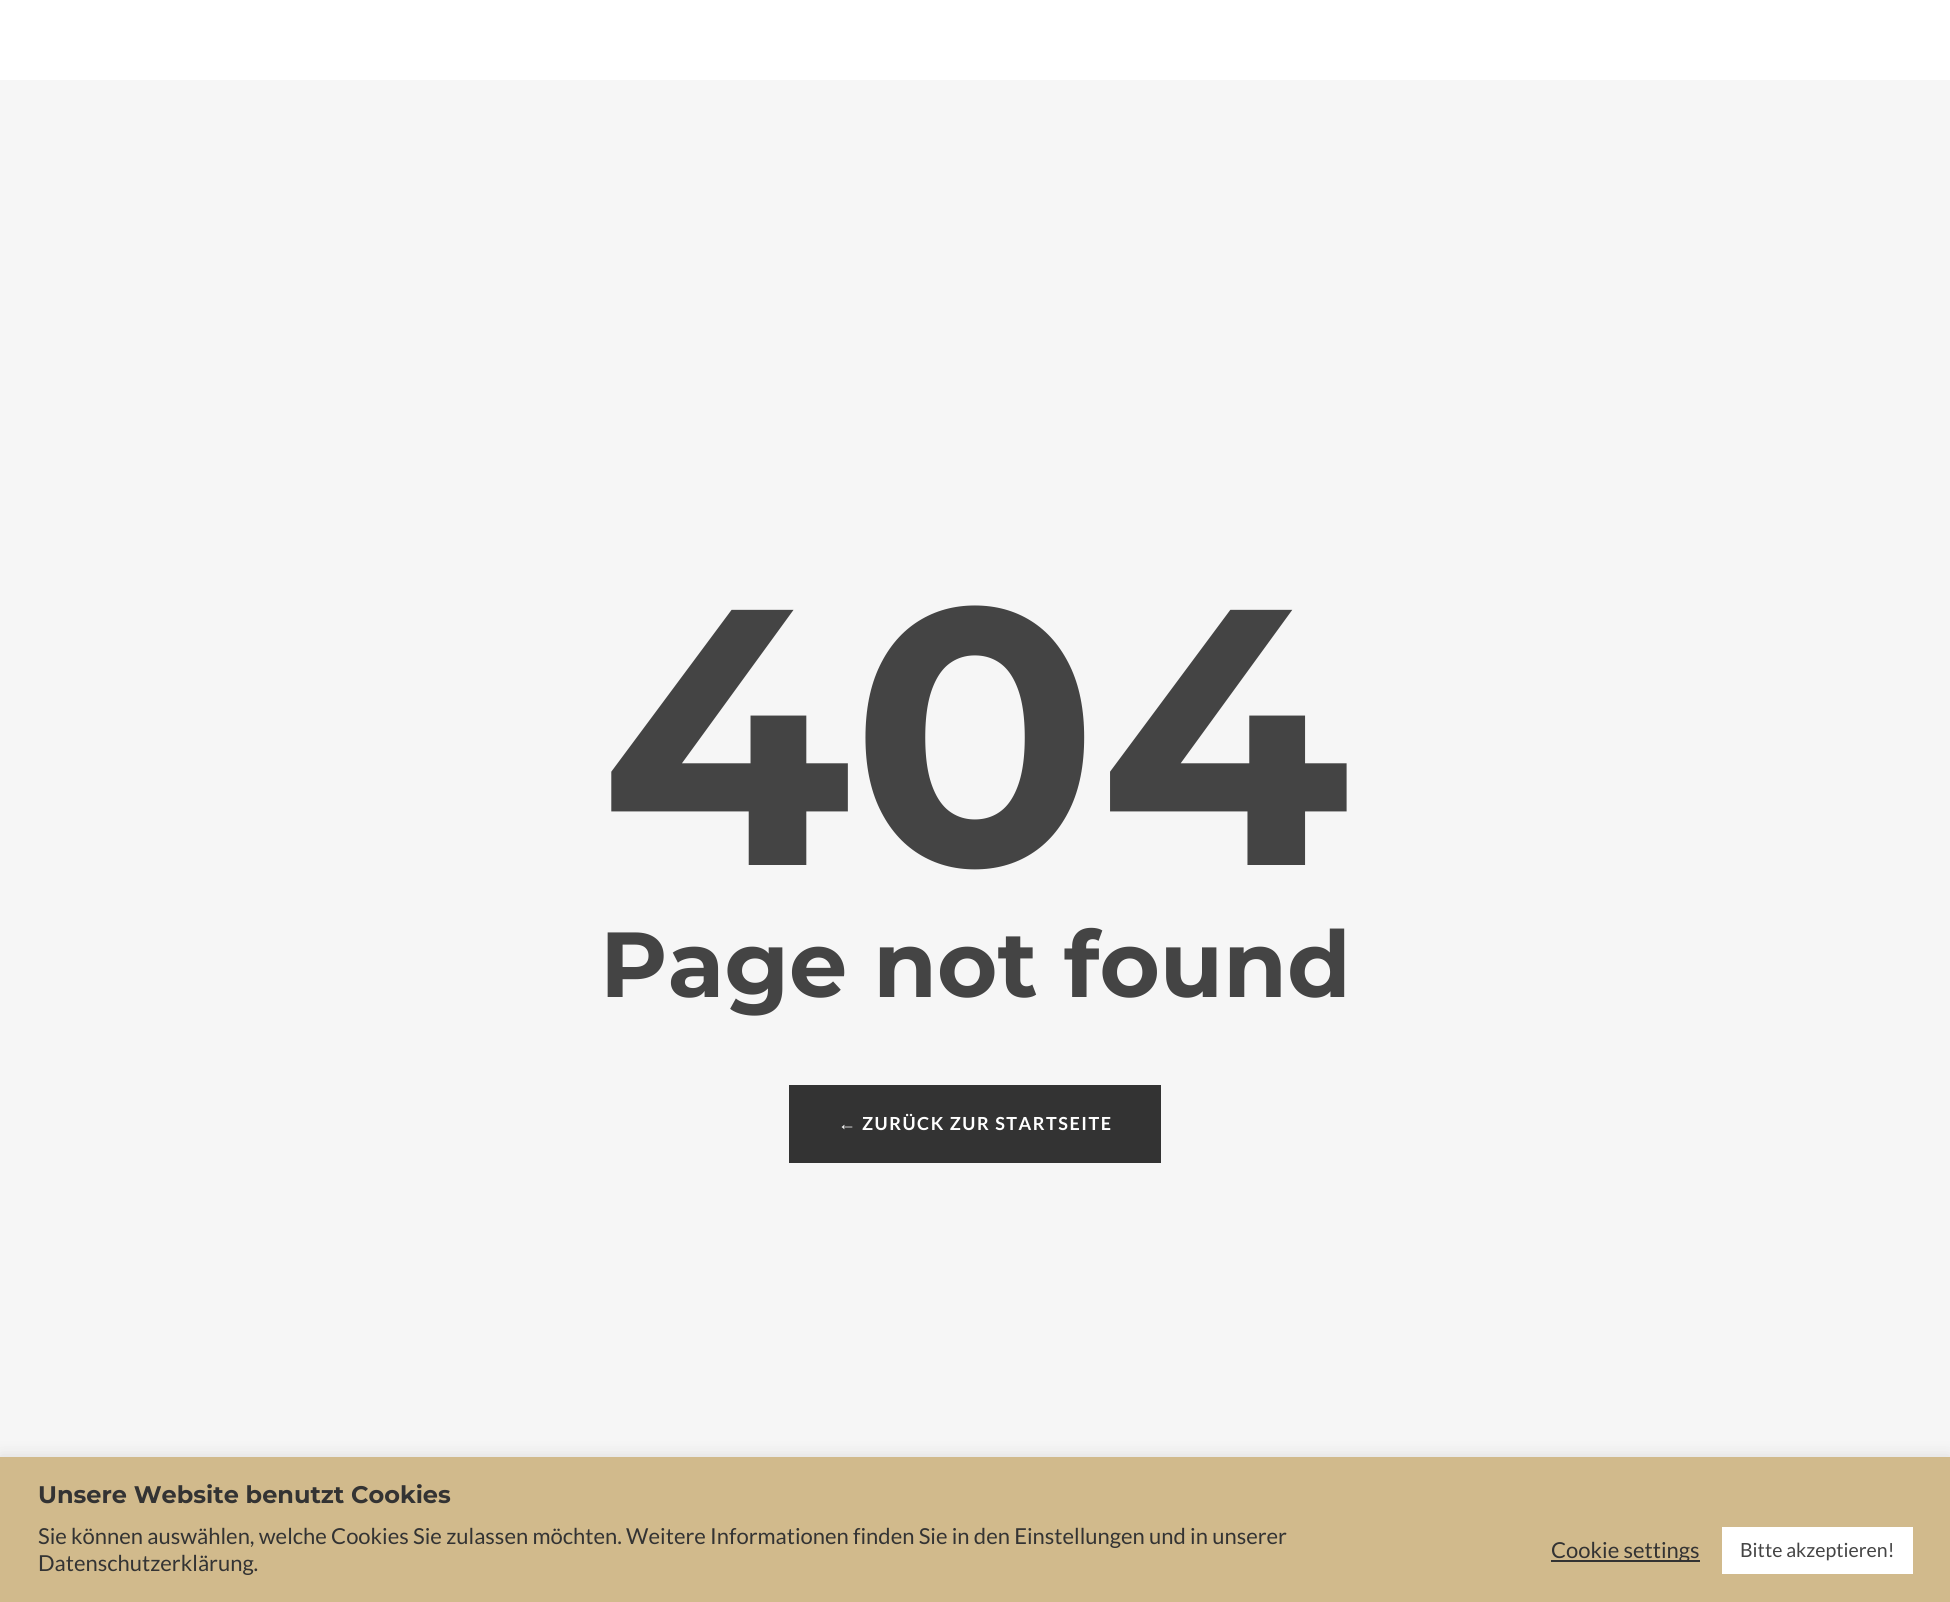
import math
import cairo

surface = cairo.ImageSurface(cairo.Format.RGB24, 1950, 1602)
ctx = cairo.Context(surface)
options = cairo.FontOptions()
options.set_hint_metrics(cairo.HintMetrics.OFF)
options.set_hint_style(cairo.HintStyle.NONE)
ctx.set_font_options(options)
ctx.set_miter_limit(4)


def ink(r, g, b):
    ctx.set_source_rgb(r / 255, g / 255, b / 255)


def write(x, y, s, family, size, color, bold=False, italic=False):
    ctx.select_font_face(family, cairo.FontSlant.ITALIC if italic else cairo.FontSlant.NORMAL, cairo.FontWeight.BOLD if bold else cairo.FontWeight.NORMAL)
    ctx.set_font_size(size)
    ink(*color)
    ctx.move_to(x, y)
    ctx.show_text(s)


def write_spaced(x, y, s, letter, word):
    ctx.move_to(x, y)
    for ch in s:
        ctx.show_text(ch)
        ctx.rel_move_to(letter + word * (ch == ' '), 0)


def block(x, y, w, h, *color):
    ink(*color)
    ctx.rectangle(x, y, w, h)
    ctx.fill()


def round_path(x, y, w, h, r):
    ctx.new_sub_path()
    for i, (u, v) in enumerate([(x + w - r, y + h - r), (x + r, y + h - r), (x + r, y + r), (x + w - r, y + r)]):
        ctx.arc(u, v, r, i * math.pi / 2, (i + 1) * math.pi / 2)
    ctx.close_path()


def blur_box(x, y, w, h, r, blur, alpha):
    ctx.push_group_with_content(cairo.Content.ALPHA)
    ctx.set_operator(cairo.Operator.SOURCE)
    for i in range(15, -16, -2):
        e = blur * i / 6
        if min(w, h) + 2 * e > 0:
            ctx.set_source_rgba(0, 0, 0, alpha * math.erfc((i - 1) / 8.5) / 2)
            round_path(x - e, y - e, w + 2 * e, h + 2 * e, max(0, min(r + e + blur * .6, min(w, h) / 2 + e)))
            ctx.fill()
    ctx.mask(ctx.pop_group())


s1 = dict(family="Montserrat", size=364.5, color=(68, 68, 68), bold=True)
s2 = dict(family="Montserrat", size=92.25, color=(68, 68, 68), bold=True)
s3 = dict(family="Montserrat", size=24, color=(51, 51, 51), bold=True)
s4 = dict(family="Lato", size=22, color=(51, 51, 51))
s5 = dict(family="Lato", size=19.5, color=(68, 68, 68))

ink(255, 255, 255)
ctx.paint()
block(0, 80, 1950, 1377, 246, 246, 246)
write(600, 865, "404", **s1)
write(600, 997, "Page not found", **s2)
block(789, 1085, 372, 78, 51, 51, 51)
ctx.select_font_face("Liberation Serif", cairo.FontSlant.NORMAL, cairo.FontWeight.BOLD)
ctx.set_font_size(18)
ink(255, 255, 255)
write_spaced(838, 1130, "←", 1.5, 0)
ctx.select_font_face("Lato", cairo.FontSlant.NORMAL, cairo.FontWeight.BOLD)
write_spaced(862, 1130, "ZURÜCK ZUR STARTSEITE", 1.5, 0)
ink(172, 171, 171)
blur_box(0, 1455, 1950, 146, 0, 7.5, 0.3)
block(0, 1457, 1950, 145, 209, 186, 140)
write(38, 1503, "Unsere Website benutzt Cookies", **s3)
write(38, 1544, "Sie können auswählen, welche Cookies Sie zulassen möchten. Weitere Informationen finden Sie in den Einstellungen und in unserer", **s4)
write(38, 1571, "Datenschutzerklärung.", **s4)
block(1551, 1560, 149, 2, 51, 51, 51)
write(1551, 1558, "Cookie settings", **s4)
block(1722, 1527, 191, 47, 255, 255, 255)
write(1740, 1557, "Bitte akzeptieren!", **s5)
surface.write_to_png("screenshot.png")
